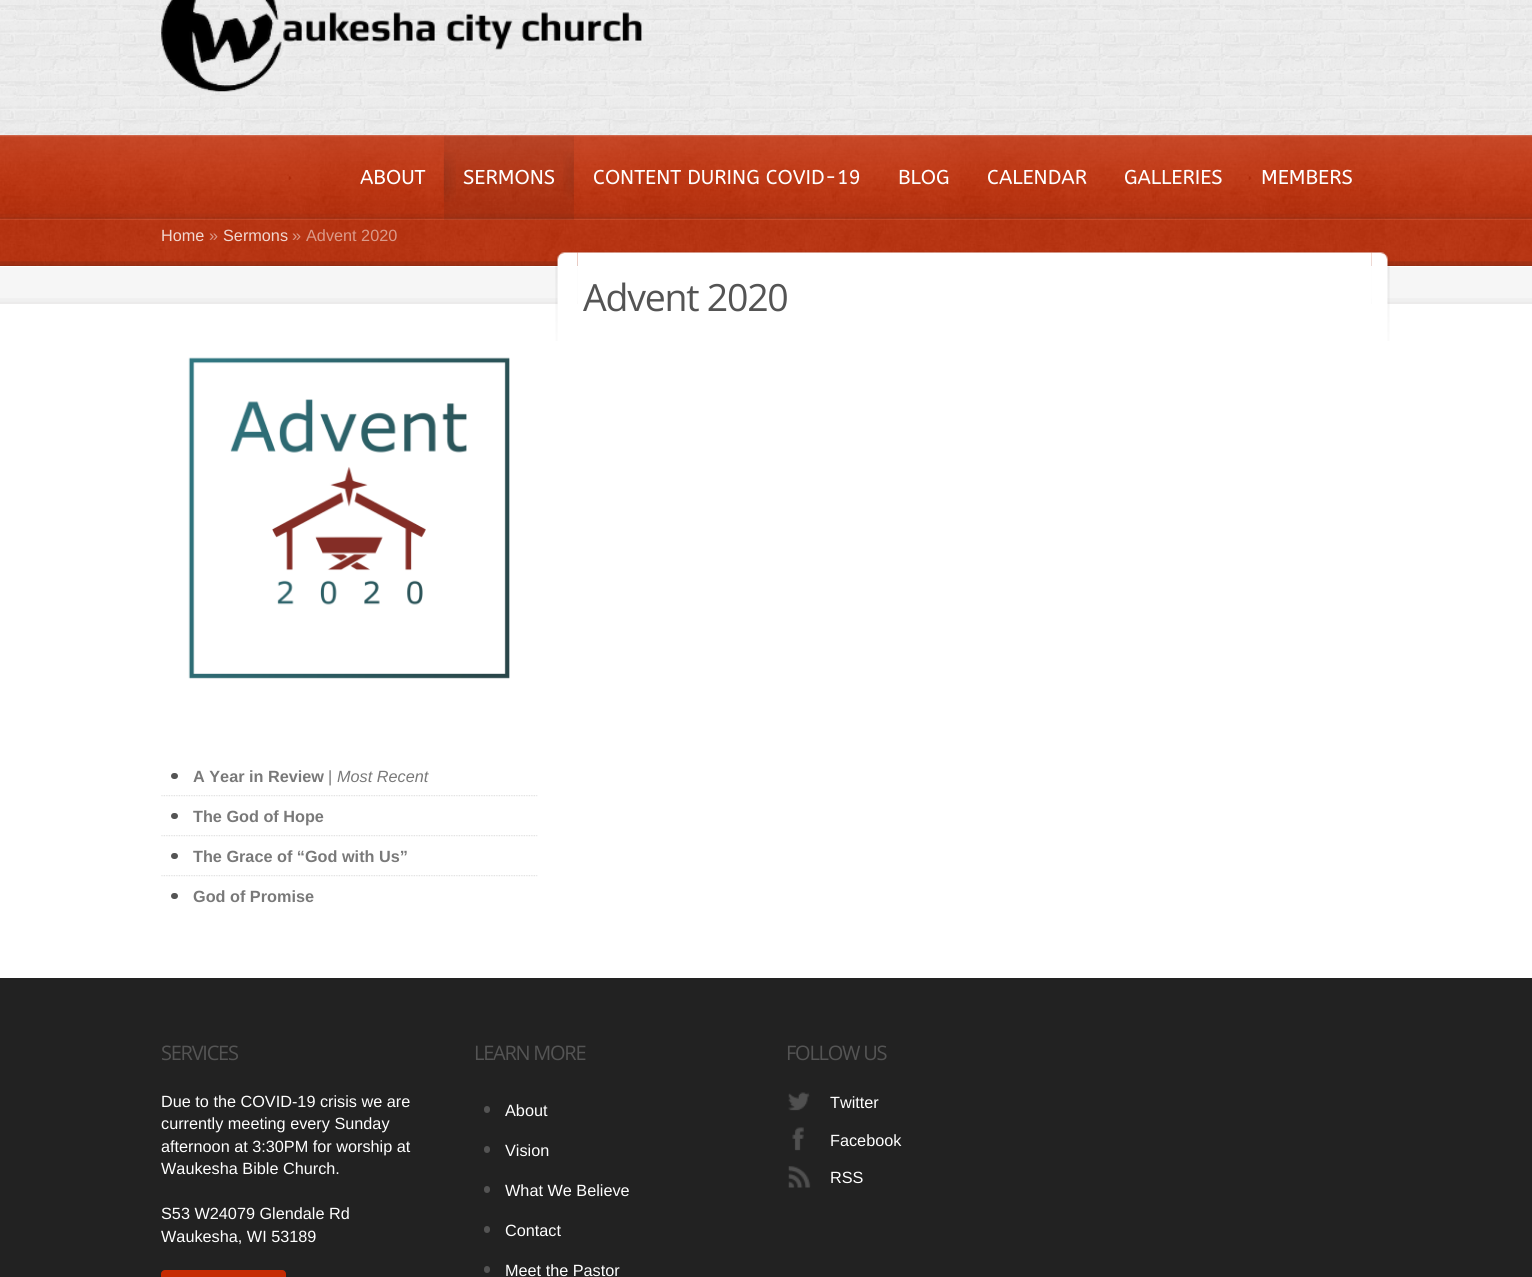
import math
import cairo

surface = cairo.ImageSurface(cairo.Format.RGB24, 1532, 1277)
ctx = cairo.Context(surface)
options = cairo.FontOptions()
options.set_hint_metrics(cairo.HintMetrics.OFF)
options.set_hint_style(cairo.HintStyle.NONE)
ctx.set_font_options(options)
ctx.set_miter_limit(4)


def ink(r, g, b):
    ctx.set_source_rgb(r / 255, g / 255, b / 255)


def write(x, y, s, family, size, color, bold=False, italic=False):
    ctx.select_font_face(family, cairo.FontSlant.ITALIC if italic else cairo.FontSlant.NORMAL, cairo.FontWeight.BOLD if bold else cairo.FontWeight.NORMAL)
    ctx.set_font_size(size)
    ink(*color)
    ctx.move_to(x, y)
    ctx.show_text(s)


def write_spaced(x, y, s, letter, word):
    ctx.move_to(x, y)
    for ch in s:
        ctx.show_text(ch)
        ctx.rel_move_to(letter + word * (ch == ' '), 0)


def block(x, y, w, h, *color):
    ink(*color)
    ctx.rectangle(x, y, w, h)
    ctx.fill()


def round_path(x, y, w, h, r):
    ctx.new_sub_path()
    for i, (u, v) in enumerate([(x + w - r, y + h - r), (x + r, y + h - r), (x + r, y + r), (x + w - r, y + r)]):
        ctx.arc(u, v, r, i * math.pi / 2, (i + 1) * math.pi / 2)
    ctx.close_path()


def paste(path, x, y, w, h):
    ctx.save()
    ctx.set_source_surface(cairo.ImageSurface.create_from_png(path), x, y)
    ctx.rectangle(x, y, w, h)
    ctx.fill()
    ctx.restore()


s1 = dict(family="ABeeZee", size=20, color=(255, 255, 255))
s2 = dict(family="Liberation Sans", size=16.25, color=(241, 215, 208))
s3 = dict(family="Liberation Sans", size=16.25, color=(219, 154, 137))
s4 = dict(family="Liberation Sans", size=16.25, color=(121, 121, 121), bold=True)
s5 = dict(family="Liberation Sans", size=16.25, color=(121, 121, 121))
s6 = dict(family="Liberation Sans", size=16.25, color=(121, 121, 121), italic=True)
s7 = dict(family="Liberation Sans", size=16.25, color=(255, 255, 255))

ink(255, 255, 255)
ctx.paint()
paste("pic1.png", 0, 0, 1532, 135)
paste("pic2.png", 161, 0, 481, 92)
block(0, 135, 1532, 131, 198, 43, 2)
paste("pic3.png", 0, 135, 1532, 131)
paste("pic4.png", 0, 207, 1532, 13)
paste("pic5.png", 0, 135, 1532, 73)
write(360, 184, "ABOUT", **s1)
ctx.set_source_rgba(0.173, 0.129, 0.129, 0.09)
ctx.rectangle(444, 136, 130, 84)
ctx.fill()
paste("pic6.png", 443, 152, 13, 50)
paste("pic7.png", 563, 151, 11, 49)
write(463, 184, "SERMONS", **s1)
write(593, 184, "CONTENT DURING COVID-19", **s1)
write(898, 184, "BLOG", **s1)
write(987, 184, "CALENDAR", **s1)
write(1124, 184, "GALLERIES", **s1)
write(1261, 184, "MEMBERS", **s1)
paste("pic8.png", 0, 220, 1532, 46)
write(161, 241, "Home", **s2)
write(209, 241, "»", **s3)
write(223, 241, "Sermons", **s2)
write(292, 241, "»", **s3)
write(306, 241, "Advent 2020", **s3)
block(0, 267, 1532, 37, 246, 246, 246)
paste("pic9.png", 0, 298, 1532, 6)
paste("pic11.png", 555, 251, 23, 90)
paste("pic12.png", 1371, 251, 19, 90)
paste("pic10.png", 577, 251, 795, 53)
ctx.select_font_face("Open Sans")
ctx.set_font_size(37.5)
ink(84, 84, 84)
write_spaced(583, 311, "Advent 2020", -1.25, 0)
paste("pic13.png", 188, 357, 322, 322)
paste("pic14.png", 161, 795, 377, 2)
round_path(171, 773, 7, 6, 3)
ctx.fill()
write(193, 782, "A Year in Review", **s4)
write(328, 782, "|", **s5)
write(337, 782, "Most Recent", **s6)
paste("pic14.png", 161, 835, 377, 2)
ink(84, 84, 84)
round_path(171, 813, 7, 6, 3)
ctx.fill()
write(193, 822, "The God of Hope", **s4)
paste("pic14.png", 161, 875, 377, 2)
ink(84, 84, 84)
round_path(171, 853, 7, 6, 3)
ctx.fill()
write(193, 862, "The Grace of “God with Us”", **s4)
ink(84, 84, 84)
round_path(171, 893, 7, 6, 3)
ctx.fill()
write(193, 902, "God of Promise", **s4)
block(0, 978, 1532, 299, 34, 34, 34)
ctx.select_font_face("Open Sans")
ctx.set_font_size(20)
ink(84, 84, 84)
write_spaced(161, 1060, "SERVICES", -1.25, 0)
write(161, 1107, "Due to the COVID-19 crisis we are", **s7)
write(161, 1129, "currently meeting every Sunday", **s7)
write(161, 1152, "afternoon at 3:30PM for worship at", **s7)
write(161, 1174, "Waukesha Bible Church.", **s7)
write(161, 1219, "S53 W24079 Glendale Rd", **s7)
write(161, 1242, "Waukesha, WI 53189", **s7)
ink(198, 43, 2)
round_path(161, 1270, 125, 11, 4)
ctx.fill()
ctx.select_font_face("Open Sans")
ctx.set_font_size(20)
ink(84, 84, 84)
write_spaced(474, 1060, "LEARN MORE", -1.25, 0)
round_path(484, 1106, 6, 7, 3)
ctx.fill()
write(505, 1116, "About", **s7)
ink(84, 84, 84)
round_path(484, 1146, 6, 7, 3)
ctx.fill()
write(505, 1156, "Vision", **s7)
ink(84, 84, 84)
round_path(484, 1186, 6, 7, 3)
ctx.fill()
write(505, 1196, "What We Believe", **s7)
ink(84, 84, 84)
round_path(484, 1226, 6, 7, 3)
ctx.fill()
write(505, 1236, "Contact", **s7)
ink(84, 84, 84)
round_path(484, 1266, 6, 7, 3)
ctx.fill()
write(505, 1276, "Meet the Pastor", **s7)
ctx.select_font_face("Open Sans")
ctx.set_font_size(20)
ink(84, 84, 84)
write_spaced(786, 1060, "FOLLOW US", -1.25, 0)
paste("pic15.png", 788, 1092, 22, 19)
write(830, 1108, "Twitter", **s7)
paste("pic16.png", 792, 1127, 12, 24)
write(830, 1146, "Facebook", **s7)
paste("pic17.png", 788, 1166, 23, 22)
write(830, 1183, "RSS", **s7)
surface.write_to_png("screenshot.png")
